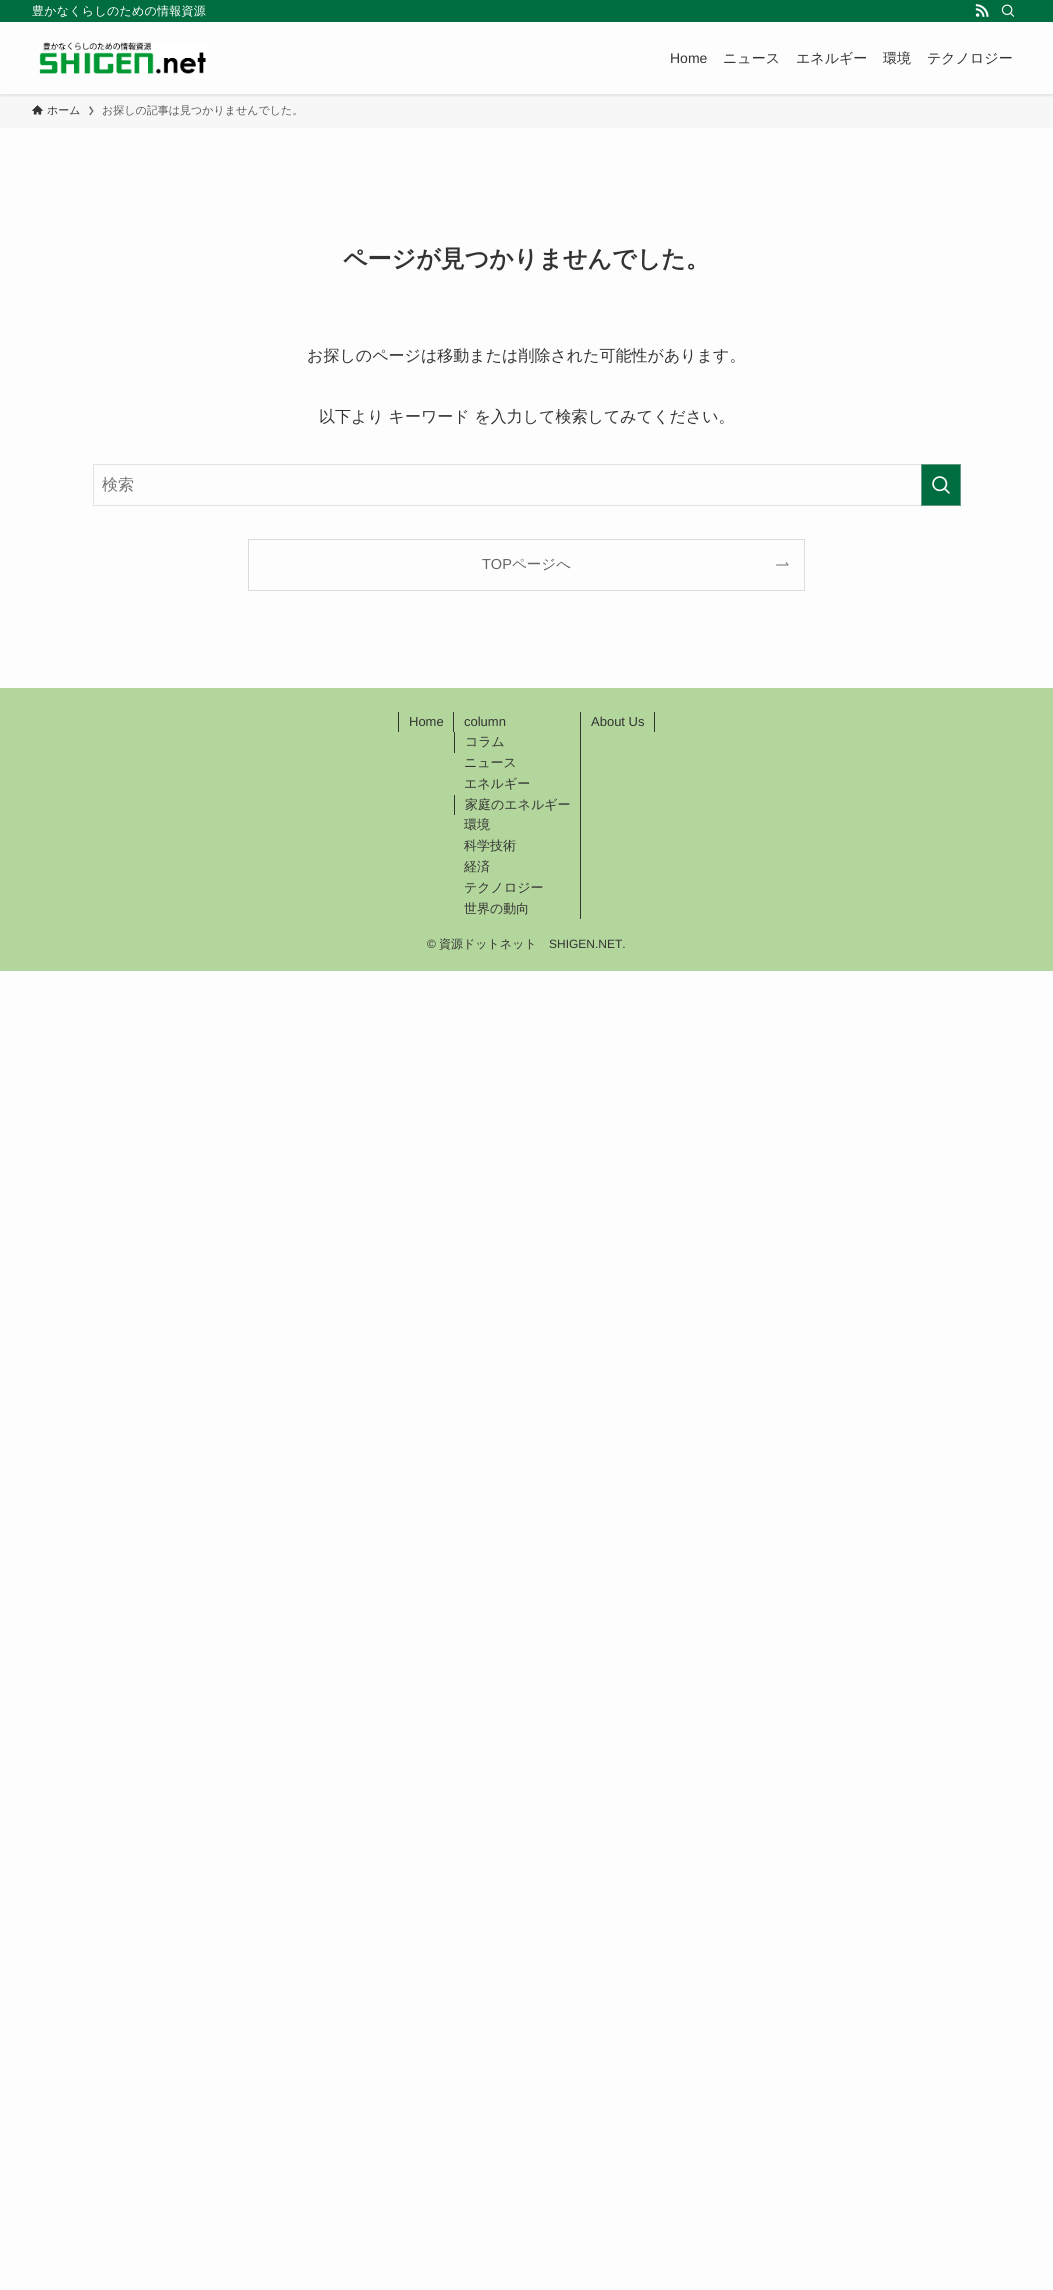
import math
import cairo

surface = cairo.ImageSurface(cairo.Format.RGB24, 1053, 2290)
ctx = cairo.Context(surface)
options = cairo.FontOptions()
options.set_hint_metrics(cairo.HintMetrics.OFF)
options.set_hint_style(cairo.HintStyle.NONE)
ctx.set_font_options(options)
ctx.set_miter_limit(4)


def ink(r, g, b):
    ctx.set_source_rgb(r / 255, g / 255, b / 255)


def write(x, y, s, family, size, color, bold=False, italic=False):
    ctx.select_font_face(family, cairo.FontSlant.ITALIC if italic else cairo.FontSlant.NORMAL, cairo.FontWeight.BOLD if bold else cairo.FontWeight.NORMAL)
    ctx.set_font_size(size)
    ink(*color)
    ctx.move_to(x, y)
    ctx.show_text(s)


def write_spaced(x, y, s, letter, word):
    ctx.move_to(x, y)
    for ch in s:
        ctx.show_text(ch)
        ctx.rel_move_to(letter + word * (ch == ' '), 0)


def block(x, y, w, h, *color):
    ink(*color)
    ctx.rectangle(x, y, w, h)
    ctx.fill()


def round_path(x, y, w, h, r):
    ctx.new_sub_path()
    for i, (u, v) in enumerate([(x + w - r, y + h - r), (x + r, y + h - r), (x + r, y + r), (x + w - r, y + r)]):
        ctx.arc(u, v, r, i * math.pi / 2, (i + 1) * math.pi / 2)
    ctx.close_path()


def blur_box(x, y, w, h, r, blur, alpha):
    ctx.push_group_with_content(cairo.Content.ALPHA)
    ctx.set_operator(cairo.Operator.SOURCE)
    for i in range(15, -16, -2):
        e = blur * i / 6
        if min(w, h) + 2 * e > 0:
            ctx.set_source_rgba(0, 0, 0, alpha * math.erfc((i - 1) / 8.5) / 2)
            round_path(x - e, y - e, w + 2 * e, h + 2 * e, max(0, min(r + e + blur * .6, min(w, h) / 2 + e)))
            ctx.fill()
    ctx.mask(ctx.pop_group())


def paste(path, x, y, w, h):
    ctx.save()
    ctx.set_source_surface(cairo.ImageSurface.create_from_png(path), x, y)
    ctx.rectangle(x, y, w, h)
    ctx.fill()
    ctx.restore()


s1 = dict(family="Liberation Sans", size=14, color=(51, 51, 51))
s2 = dict(family="WenQuanYi Zen Hei Medium", size=14, color=(51, 51, 51))
s3 = dict(family="WenQuanYi Zen Hei Medium", size=11, color=(51, 51, 51))
s4 = dict(family="WenQuanYi Zen Hei Medium", size=11, color=(90, 90, 90))
s5 = dict(family="WenQuanYi Zen Hei", size=24, color=(51, 51, 51), bold=True)
s6 = dict(family="WenQuanYi Zen Hei Medium", size=16, color=(51, 51, 51))
s7 = dict(family="WenQuanYi Zen Hei Medium", size=16, color=(117, 117, 117))
s8 = dict(family="Liberation Sans", size=14.5, color=(102, 102, 102))
s9 = dict(family="WenQuanYi Zen Hei Medium", size=14.5, color=(102, 102, 102))
s10 = dict(family="Liberation Sans", size=13, color=(51, 51, 51))
s11 = dict(family="WenQuanYi Zen Hei Medium", size=13, color=(51, 51, 51))
s12 = dict(family="Liberation Sans", size=12, color=(51, 51, 51))
s13 = dict(family="WenQuanYi Zen Hei Medium", size=12, color=(51, 51, 51))

ink(253, 253, 253)
ctx.paint()
block(0, 94, 1053, 34, 247, 247, 247)
ctx.save()
ctx.rectangle(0, 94, 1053, 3)
ctx.clip()
ink(0, 0, 0)
blur_box(0, 1, 1053, 94, 0, 2, 0.12)
ctx.restore()
block(0, 0, 1053, 22, 0, 109, 65)
ctx.select_font_face("WenQuanYi Zen Hei Medium")
ctx.set_font_size(12)
ink(255, 255, 255)
write_spaced(32, 15, "豊かなくらしのための情報資源", 0.25, 0)
paste("pic1.png", 975, 4, 14, 13)
paste("pic2.png", 1001, 4, 14, 13)
paste("pic3.png", 39, 42, 168, 32)
write(670, 63, "Home", **s1)
write(723, 63, "ニュース", **s2)
write(796, 63, "エネルギー", **s2)
write(883, 63, "環境", **s2)
write(927, 63, "テクノロジー", **s2)
paste("pic4.png", 32, 105, 11, 10)
write(47, 114, "ホーム", **s3)
ink(90, 90, 90)
ctx.new_path()
ctx.move_to(90.5, 106.5)
ctx.line_to(89, 107)
ctx.line_to(92, 111)
ctx.line_to(89, 115)
ctx.line_to(90.5, 115)
ctx.line_to(93.5, 111)
ctx.close_path()
ctx.fill()
write(102, 114, "お探しの記事は見つかりませんでした。", **s4)
write(343, 267, "ページが見つかりませんでした。", **s5)
write(307, 361, "お探しのページは移動または削除された可能性があります。", **s6)
write(319, 422, "以下より キーワード を入力して検索してみてください。", **s6)
ctx.rectangle(93.5, 464.5, 867, 41)
ink(227, 227, 227)
ctx.set_line_width(1)
ctx.stroke()
write(102, 490, "検索", **s7)
ink(0, 109, 65)
ctx.rectangle(921.5, 464.5, 39, 41)
ctx.fill_preserve()
ink(100, 154, 132)
ctx.stroke()
paste("pic5.png", 932, 476, 18, 18)
ctx.rectangle(248.5, 539.5, 556, 51)
ink(220, 220, 220)
ctx.stroke()
write(482, 569, "TOP", **s8)
write(512, 569, "ページへ", **s9)
paste("pic6.png", 776, 562, 13, 4)
block(0, 688, 1053, 283, 179, 214, 156)
block(453, 712, 1, 20, 51, 51, 51)
block(398, 712, 1, 20, 51, 51, 51)
write(409, 726, "Home", **s10)
block(580, 712, 1, 207, 51, 51, 51)
write(464, 726, "column", **s10)
block(454, 732, 1, 21, 51, 51, 51)
write(465, 746, "コラム", **s11)
write(464, 767, "ニュース", **s11)
write(464, 788, "エネルギー", **s11)
block(454, 795, 1, 20, 51, 51, 51)
write(465, 809, "家庭のエネルギー", **s11)
write(464, 829, "環境", **s11)
write(464, 850, "科学技術", **s11)
write(464, 871, "経済", **s11)
write(464, 892, "テクノロジー", **s11)
write(464, 913, "世界の動向", **s11)
block(654, 712, 1, 20, 51, 51, 51)
write(591, 726, "About Us", **s10)
write(427, 948, "©", **s12)
write(439, 948, "資源ドットネット", **s13)
write(549, 948, "SHIGEN.NET.", **s12)
surface.write_to_png("screenshot.png")
